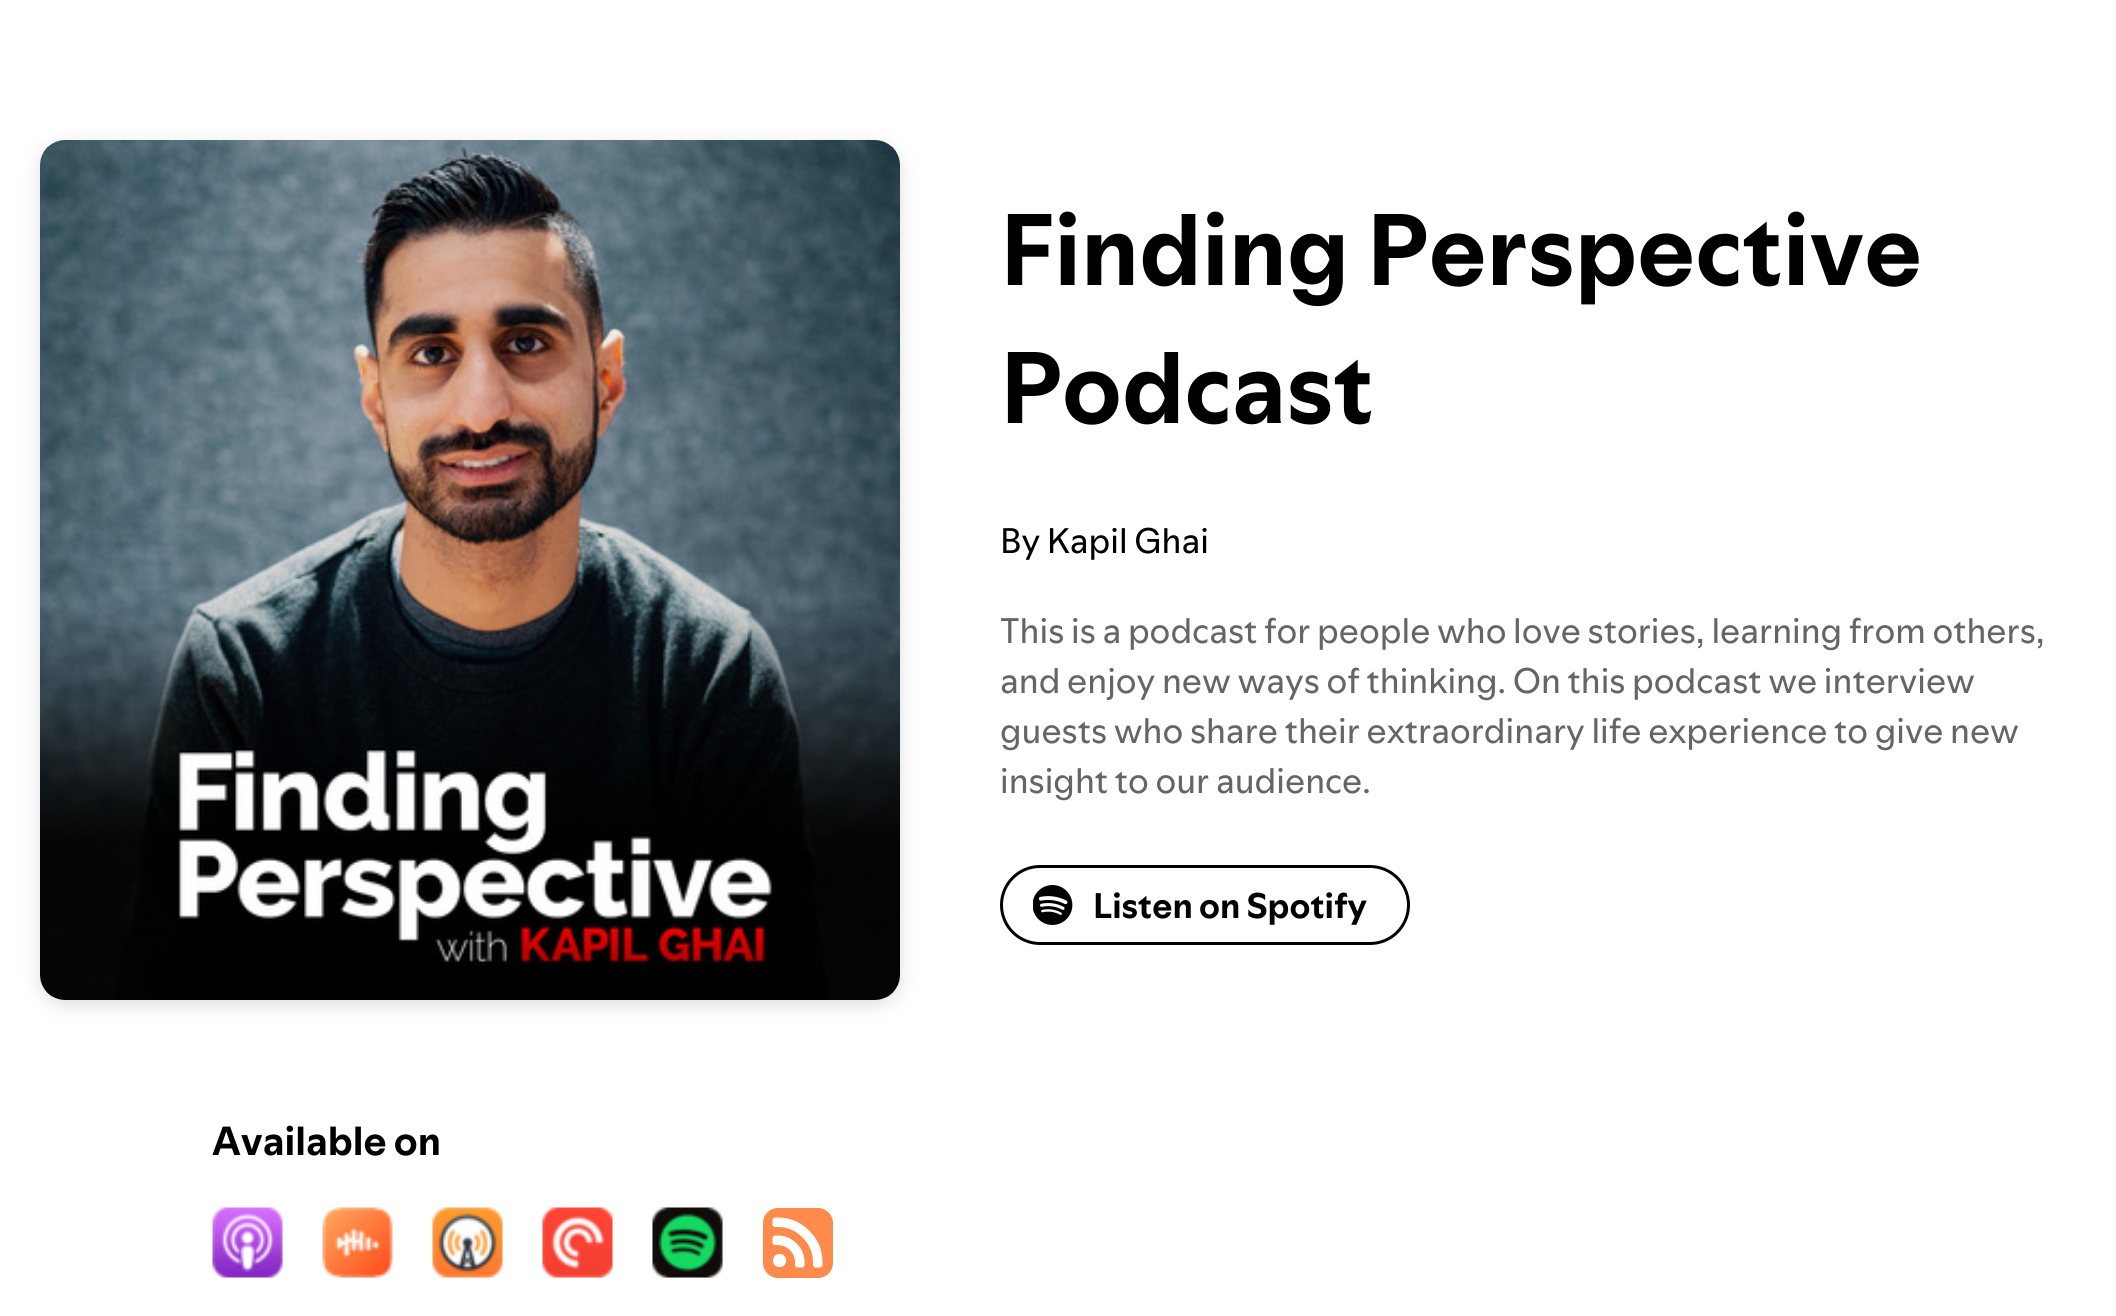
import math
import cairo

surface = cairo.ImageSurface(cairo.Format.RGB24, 2116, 1316)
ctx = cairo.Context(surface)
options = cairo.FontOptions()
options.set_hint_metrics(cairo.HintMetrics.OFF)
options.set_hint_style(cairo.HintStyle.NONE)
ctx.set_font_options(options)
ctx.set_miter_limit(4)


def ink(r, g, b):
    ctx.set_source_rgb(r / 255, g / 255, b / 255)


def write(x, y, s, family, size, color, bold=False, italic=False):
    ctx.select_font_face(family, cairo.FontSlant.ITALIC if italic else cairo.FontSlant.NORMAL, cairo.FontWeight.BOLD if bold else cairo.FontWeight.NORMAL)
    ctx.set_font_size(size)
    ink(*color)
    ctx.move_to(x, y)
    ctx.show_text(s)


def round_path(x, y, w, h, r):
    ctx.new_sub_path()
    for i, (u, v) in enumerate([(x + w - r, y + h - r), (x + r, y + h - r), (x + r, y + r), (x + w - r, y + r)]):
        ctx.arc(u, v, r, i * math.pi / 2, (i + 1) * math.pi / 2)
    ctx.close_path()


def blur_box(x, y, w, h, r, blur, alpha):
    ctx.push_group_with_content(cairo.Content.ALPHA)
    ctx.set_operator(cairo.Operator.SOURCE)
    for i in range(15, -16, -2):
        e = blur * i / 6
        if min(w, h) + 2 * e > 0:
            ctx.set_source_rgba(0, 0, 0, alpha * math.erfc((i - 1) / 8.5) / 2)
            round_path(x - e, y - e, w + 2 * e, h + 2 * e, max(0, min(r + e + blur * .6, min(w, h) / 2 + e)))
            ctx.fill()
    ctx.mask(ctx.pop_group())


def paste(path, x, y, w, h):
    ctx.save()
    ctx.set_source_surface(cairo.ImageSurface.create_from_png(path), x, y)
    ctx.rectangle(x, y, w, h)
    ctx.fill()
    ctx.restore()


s1 = dict(family="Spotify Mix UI", size=100, color=(0, 0, 0), bold=True)
s2 = dict(family="Spotify Mix UI", size=35, color=(0, 0, 0))
s3 = dict(family="Spotify Mix UI", size=35, color=(101, 101, 101))
s4 = dict(family="Spotify Mix UI", size=35, color=(0, 0, 0), bold=True)
s5 = dict(family="Spotify Mix UI", size=40, color=(0, 0, 0), bold=True)

ink(255, 255, 255)
ctx.paint()
ink(222, 222, 222)
blur_box(40, 145, 860, 860, 25, 9, 1)
paste("pic1.png", 40, 140, 860, 860)
write(1000, 285, "Finding Perspective", **s1)
write(1000, 423, "Podcast", **s1)
write(1000, 553, "By Kapil Ghai", **s2)
write(1000, 643, "This is a podcast for people who love stories, learning from others,", **s3)
write(1000, 693, "and enjoy new ways of thinking. On this podcast we interview", **s3)
write(1000, 743, "guests who share their extraordinary life experience to give new", **s3)
write(1000, 793, "insight to our audience.", **s3)
round_path(1001.5, 866.5, 407, 77, 38.5)
ink(0, 0, 0)
ctx.set_line_width(3)
ctx.stroke()
paste("pic2.png", 1033, 885, 40, 40)
write(1093, 918, "Listen on Spotify", **s4)
write(212, 1155, "Available on", **s5)
paste("pic3.png", 212, 1207, 71, 71)
paste("pic4.png", 322, 1207, 71, 71)
paste("pic5.png", 432, 1207, 71, 71)
paste("pic6.png", 542, 1207, 71, 71)
paste("pic7.png", 652, 1207, 71, 71)
paste("pic8.png", 763, 1208, 70, 70)
surface.write_to_png("screenshot.png")
